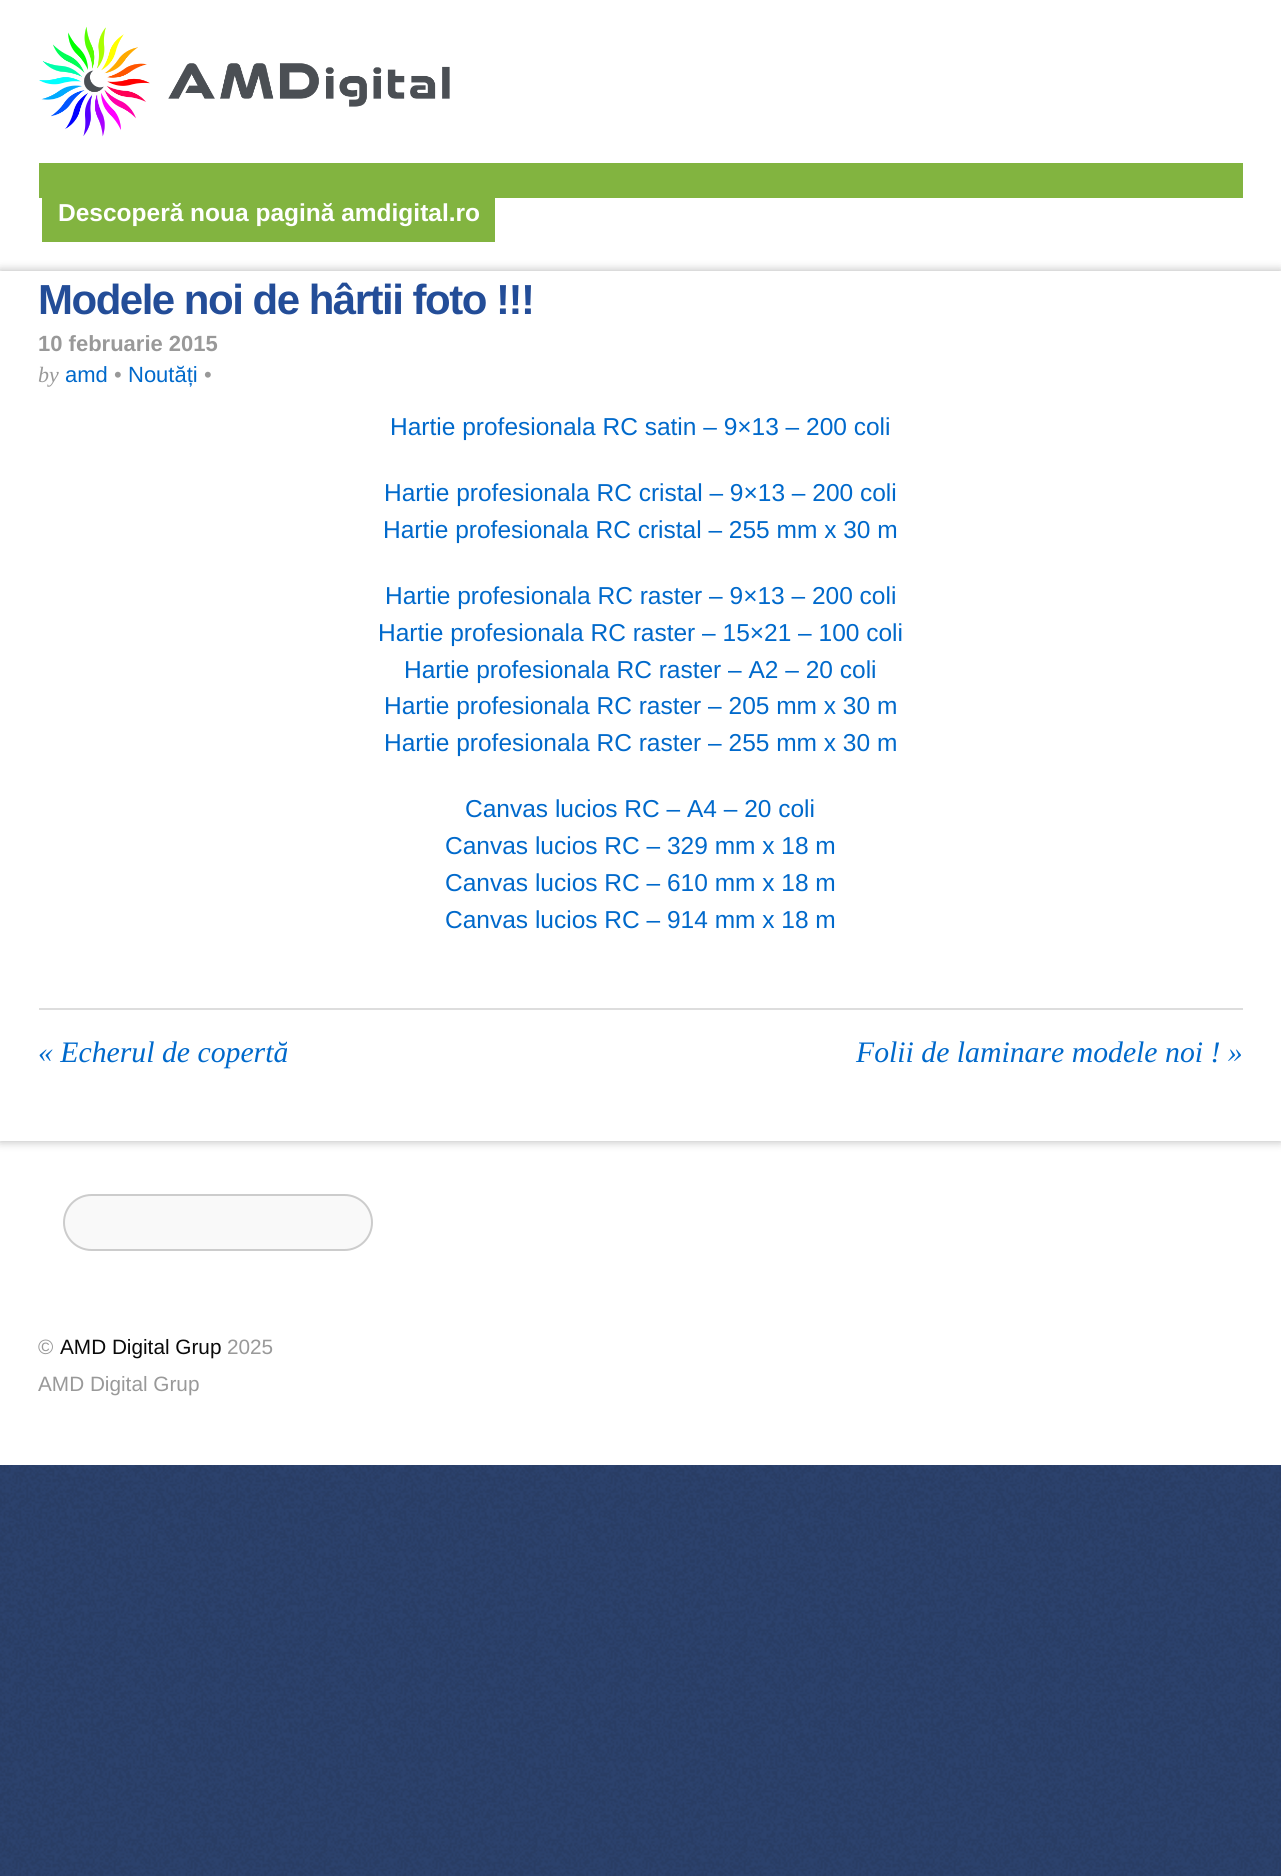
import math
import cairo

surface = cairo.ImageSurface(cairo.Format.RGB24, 1281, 1876)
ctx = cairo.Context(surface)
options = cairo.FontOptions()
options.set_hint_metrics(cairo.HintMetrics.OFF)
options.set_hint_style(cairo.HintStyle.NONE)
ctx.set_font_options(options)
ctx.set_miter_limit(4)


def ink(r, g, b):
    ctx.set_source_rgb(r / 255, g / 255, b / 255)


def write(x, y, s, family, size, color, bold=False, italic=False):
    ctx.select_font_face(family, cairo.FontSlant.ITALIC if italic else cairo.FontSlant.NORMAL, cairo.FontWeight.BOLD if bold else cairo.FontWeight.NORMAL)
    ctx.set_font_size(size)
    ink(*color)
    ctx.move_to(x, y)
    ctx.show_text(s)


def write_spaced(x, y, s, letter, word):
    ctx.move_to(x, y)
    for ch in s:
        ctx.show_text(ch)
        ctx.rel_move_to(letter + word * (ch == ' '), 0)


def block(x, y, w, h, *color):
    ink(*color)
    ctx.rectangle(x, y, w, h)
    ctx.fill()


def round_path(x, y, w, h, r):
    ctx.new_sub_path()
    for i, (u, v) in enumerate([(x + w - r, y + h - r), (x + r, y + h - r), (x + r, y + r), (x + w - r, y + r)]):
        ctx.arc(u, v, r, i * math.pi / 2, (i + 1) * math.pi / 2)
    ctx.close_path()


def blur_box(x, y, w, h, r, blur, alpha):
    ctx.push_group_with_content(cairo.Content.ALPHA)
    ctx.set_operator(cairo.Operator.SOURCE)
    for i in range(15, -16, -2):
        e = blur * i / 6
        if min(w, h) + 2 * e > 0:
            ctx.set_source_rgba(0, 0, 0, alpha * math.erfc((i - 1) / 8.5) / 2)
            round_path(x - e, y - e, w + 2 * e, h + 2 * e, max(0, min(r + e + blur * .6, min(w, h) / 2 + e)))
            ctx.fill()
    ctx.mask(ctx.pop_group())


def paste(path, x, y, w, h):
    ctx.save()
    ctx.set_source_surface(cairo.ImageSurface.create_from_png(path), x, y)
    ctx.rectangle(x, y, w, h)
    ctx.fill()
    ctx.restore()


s1 = dict(family="Liberation Sans", size=24.5, color=(255, 255, 255), bold=True)
s2 = dict(family="Liberation Sans", size=22, color=(153, 153, 153), bold=True)
s3 = dict(family="Liberation Serif", size=22, color=(153, 153, 153), italic=True)
s4 = dict(family="Liberation Sans", size=22, color=(0, 105, 203))
s5 = dict(family="Liberation Sans", size=22, color=(153, 153, 153))
s6 = dict(family="Liberation Sans", size=24.5, color=(0, 105, 203))
s7 = dict(family="Liberation Serif", size=29.75, color=(0, 105, 203), italic=True)
s8 = dict(family="Liberation Sans", size=20.75, color=(153, 153, 153))
s9 = dict(family="Liberation Sans", size=20.75, color=(10, 10, 10))

ink(255, 255, 255)
ctx.paint()
paste("pic1.png", 0, 1465, 1281, 411)
paste("pic2.png", 39, 26, 411, 111)
block(39, 163, 1204, 35, 130, 180, 64)
block(42, 198, 453, 44, 130, 180, 64)
write(58, 221, "Descoperă noua pagină amdigital.ro", **s1)
ink(0, 0, 0)
blur_box(0, 271, 1281, 870, 0, 5, 0.3)
block(0, 271, 1281, 870, 255, 255, 255)
ctx.set_font_size(42)
ink(35, 77, 152)
write_spaced(38, 314, "Modele noi de hârtii foto !!!", -1.5, 0)
write(38, 351, "10 februarie 2015", **s2)
write(38, 382, "by", **s3)
write(65, 382, "amd", **s4)
write(114, 382, "•", **s5)
write(128, 382, "Noutăți", **s4)
write(204, 382, "•", **s5)
write(390, 435, "Hartie profesionala RC satin – 9×13 – 200 coli", **s6)
write(384, 501, "Hartie profesionala RC cristal – 9×13 – 200 coli", **s6)
write(383, 538, "Hartie profesionala RC cristal – 255 mm x 30 m", **s6)
write(385, 604, "Hartie profesionala RC raster – 9×13 – 200 coli", **s6)
write(378, 641, "Hartie profesionala RC raster – 15×21 – 100 coli", **s6)
write(404, 678, "Hartie profesionala RC raster – A2 – 20 coli", **s6)
write(384, 714, "Hartie profesionala RC raster – 205 mm x 30 m", **s6)
write(384, 751, "Hartie profesionala RC raster – 255 mm x 30 m", **s6)
write(465, 817, "Canvas lucios RC – A4 – 20 coli", **s6)
write(445, 854, "Canvas lucios RC – 329 mm x 18 m", **s6)
write(445, 891, "Canvas lucios RC – 610 mm x 18 m", **s6)
write(445, 928, "Canvas lucios RC – 914 mm x 18 m", **s6)
block(39, 1008, 1204, 2, 221, 221, 221)
write(38, 1062, "« Echerul de copertă", **s7)
write(856, 1062, "Folii de laminare modele noi ! »", **s7)
ink(249, 249, 249)
round_path(64, 1195, 308, 55, 27.5)
ctx.fill_preserve()
ink(204, 204, 204)
ctx.stroke()
write(38, 1354, "©", **s8)
write(60, 1354, "AMD Digital Grup", **s9)
write(227, 1354, "2025", **s8)
write(38, 1391, "AMD Digital Grup", **s8)
surface.write_to_png("screenshot.png")
